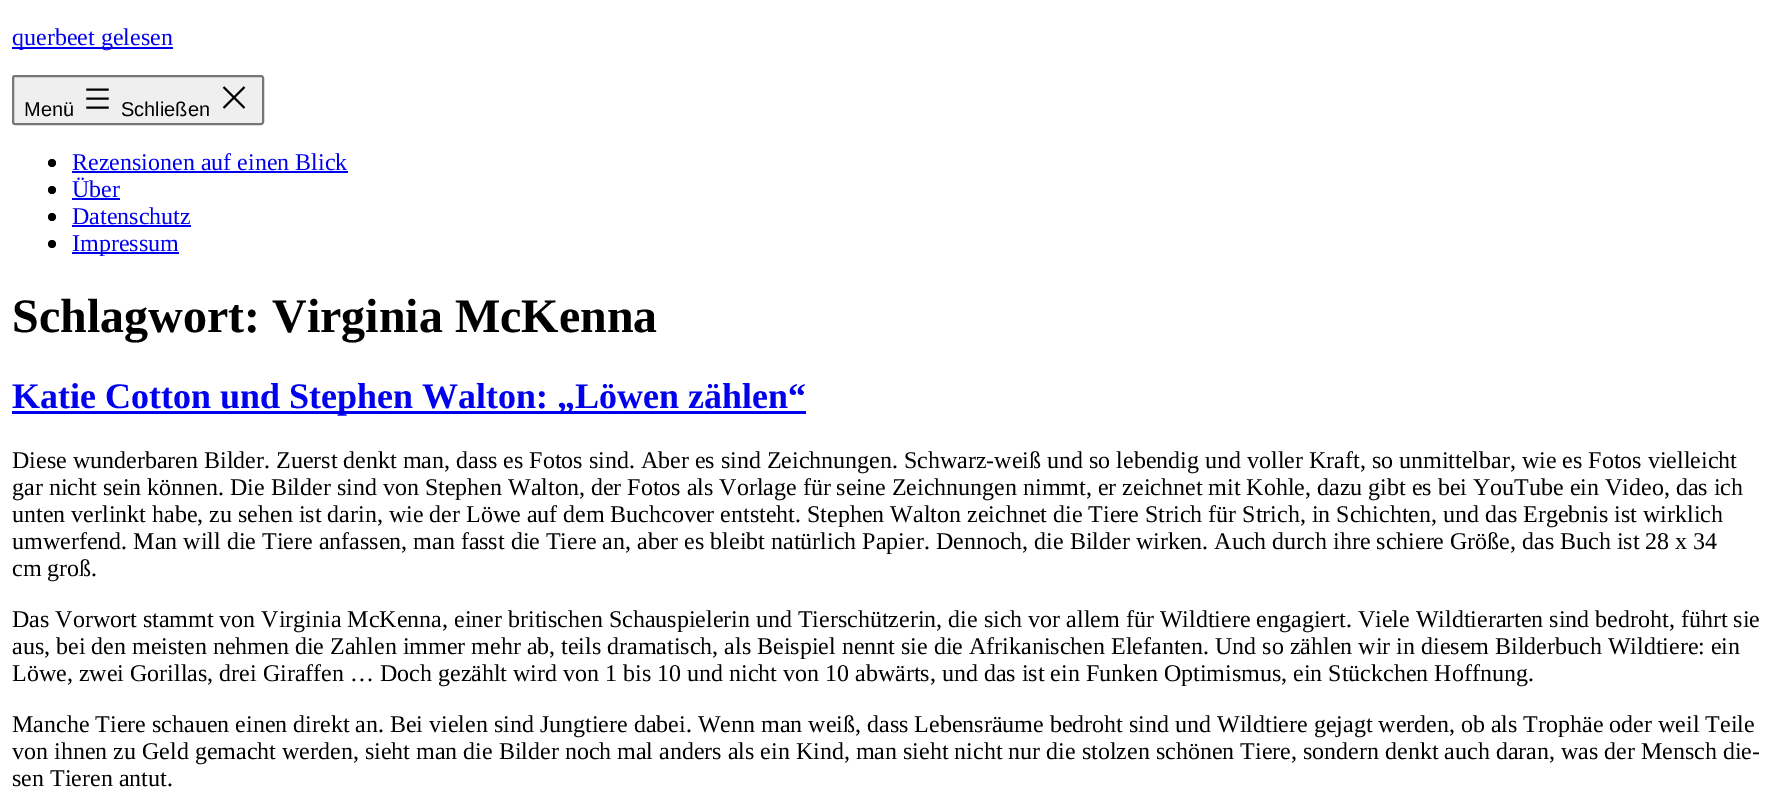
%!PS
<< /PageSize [1774 812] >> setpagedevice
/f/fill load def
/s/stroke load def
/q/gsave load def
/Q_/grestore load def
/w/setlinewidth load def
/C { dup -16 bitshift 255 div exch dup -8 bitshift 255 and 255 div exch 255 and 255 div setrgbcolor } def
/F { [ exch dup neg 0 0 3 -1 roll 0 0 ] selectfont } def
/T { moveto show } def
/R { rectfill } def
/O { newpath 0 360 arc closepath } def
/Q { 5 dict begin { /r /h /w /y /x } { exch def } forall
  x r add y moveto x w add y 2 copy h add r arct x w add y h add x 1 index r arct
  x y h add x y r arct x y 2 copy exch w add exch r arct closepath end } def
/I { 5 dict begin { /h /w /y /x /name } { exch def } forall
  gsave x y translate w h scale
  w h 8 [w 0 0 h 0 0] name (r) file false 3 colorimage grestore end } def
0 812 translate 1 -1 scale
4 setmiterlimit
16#FFFFFF C
0 0 1774 812 R
16#0000EE C
12 47 161 2 R
/LiberationSerif-Regular 24 F
(querbeet gelesen) 12 45 T
16#EFEFEF C
13 76 250 48 2 Q q f Q_
16#767676 C
2 w
s
/LiberationSans-Regular 20 F
16#000000 C
(Menü) 24 116 T
(1.rgb) 86 88 23 21 I
(Schließen) 121 116 T
(2.rgb) 222 86 24 23 I
52 163 4 O f
/LiberationSerif-Regular 24 F
16#0000EE C
(Rezensionen auf einen Blick) 72 170 T
72 171 276 2 R
16#000000 C
52 190 4 O f
16#0000EE C
(Über) 72 197 T
72 198 48 2 R
16#000000 C
52 217 4 O f
16#0000EE C
(Datenschutz) 72 224 T
72 225 119 2 R
16#000000 C
52 244 4 O f
16#0000EE C
72 252 107 2 R
(Impressum) 72 251 T
/LiberationSerif-Bold 48 F
16#000000 C
(Schlagwort: Virginia McKenna) 12 332 T
16#0000EE C
12 411 794 3 R
/LiberationSerif-Bold 36 F
(Katie Cotton und Stephen Walton: „Löwen zählen“) 12 408 T
/LiberationSerif-Regular 24 F
16#000000 C
(Diese wunderbaren Bilder. Zuerst denkt man, dass es Fotos sind. Aber es sind Zeichnungen. Schwarz-weiß und so lebendig und voller Kraft, so unmittelbar, wie es Fotos vielleicht) 12 468 T
(gar nicht sein können. Die Bilder sind von Stephen Walton, der Fotos als Vorlage für seine Zeichnungen nimmt, er zeichnet mit Kohle, dazu gibt es bei YouTube ein Video, das ich) 12 495 T
(unten verlinkt habe, zu sehen ist darin, wie der Löwe auf dem Buchcover entsteht. Stephen Walton zeichnet die Tiere Strich für Strich, in Schichten, und das Ergebnis ist wirklich) 12 522 T
(umwerfend. Man will die Tiere anfassen, man fasst die Tiere an, aber es bleibt natürlich Papier. Dennoch, die Bilder wirken. Auch durch ihre schiere Größe, das Buch ist 28 x 34) 12 549 T
(cm groß.) 12 576 T
(Das Vorwort stammt von Virginia McKenna, einer britischen Schauspielerin und Tierschützerin, die sich vor allem für Wildtiere engagiert. Viele Wildtierarten sind bedroht, führt sie) 12 627 T
(aus, bei den meisten nehmen die Zahlen immer mehr ab, teils dramatisch, als Beispiel nennt sie die Afrikanischen Elefanten. Und so zählen wir in diesem Bilderbuch Wildtiere: ein) 12 654 T
(Löwe, zwei Gorillas, drei Giraffen … Doch gezählt wird von 1 bis 10 und nicht von 10 abwärts, und das ist ein Funken Optimismus, ein Stückchen Hoffnung.) 12 681 T
(Manche Tiere schauen einen direkt an. Bei vielen sind Jungtiere dabei. Wenn man weiß, dass Lebensräume bedroht sind und Wildtiere gejagt werden, ob als Trophäe oder weil Teile) 12 732 T
(von ihnen zu Geld gemacht werden, sieht man die Bilder noch mal anders als ein Kind, man sieht nicht nur die stolzen schönen Tiere, sondern denkt auch daran, was der Mensch die-) 12 759 T
(sen Tieren antut.) 12 786 T
showpage
